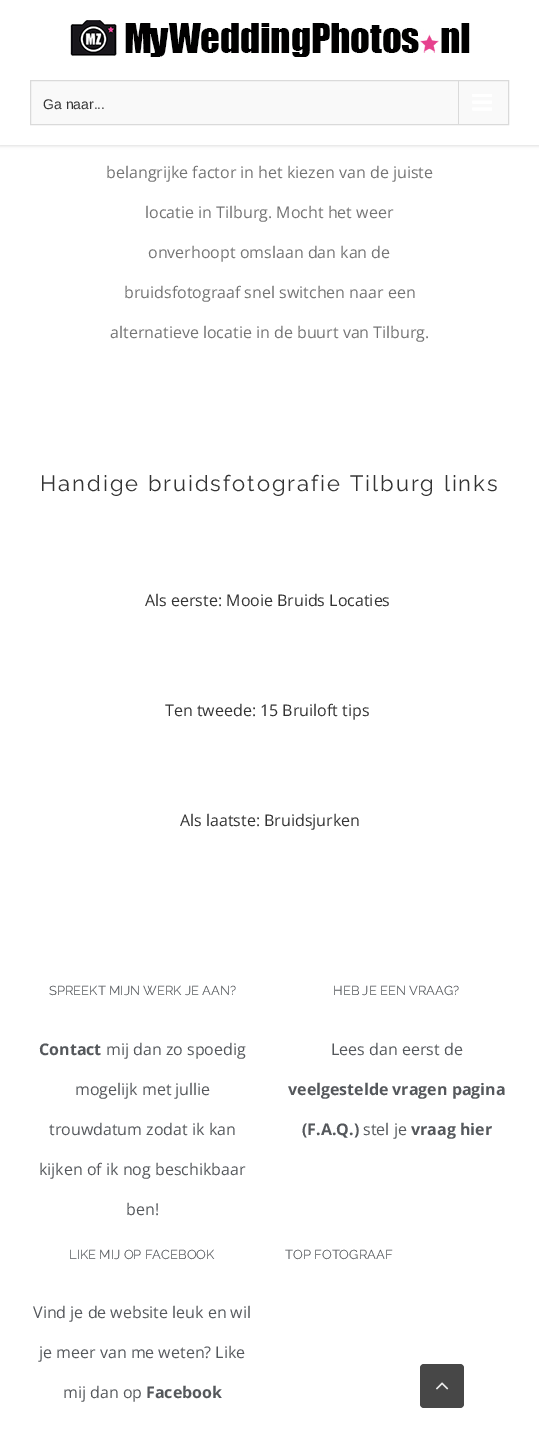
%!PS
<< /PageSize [539 1438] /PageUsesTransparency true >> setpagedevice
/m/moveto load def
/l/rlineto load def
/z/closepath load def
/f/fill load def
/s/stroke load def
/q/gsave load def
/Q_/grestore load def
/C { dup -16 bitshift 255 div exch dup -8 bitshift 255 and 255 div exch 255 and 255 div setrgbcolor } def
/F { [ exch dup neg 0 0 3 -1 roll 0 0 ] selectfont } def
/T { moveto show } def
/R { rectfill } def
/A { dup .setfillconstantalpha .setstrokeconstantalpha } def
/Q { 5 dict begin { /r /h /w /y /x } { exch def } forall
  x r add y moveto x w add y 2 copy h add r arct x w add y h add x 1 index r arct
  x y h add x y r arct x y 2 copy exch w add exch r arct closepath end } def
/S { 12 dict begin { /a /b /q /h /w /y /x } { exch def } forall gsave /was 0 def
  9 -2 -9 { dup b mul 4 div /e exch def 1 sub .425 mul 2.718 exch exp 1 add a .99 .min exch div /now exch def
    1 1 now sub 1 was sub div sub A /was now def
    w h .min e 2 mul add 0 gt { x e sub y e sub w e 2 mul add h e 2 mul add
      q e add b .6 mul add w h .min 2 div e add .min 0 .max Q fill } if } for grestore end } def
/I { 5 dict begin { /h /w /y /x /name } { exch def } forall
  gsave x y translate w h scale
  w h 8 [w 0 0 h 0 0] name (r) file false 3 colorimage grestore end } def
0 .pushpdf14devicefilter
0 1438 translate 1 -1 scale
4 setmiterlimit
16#FFFFFF C
0 0 539 1438 R
16#000000 C
0 1 539 145 0 1.5 .12 S
16#FFFFFF C
0 0 539 145 R
(1.rgb) 70 20 400 37 I
16#F9F9F9 C
30.5 80.5 m 478 0 l 0 44 l -478 0 l z q f Q_
16#DADADA C
s
/LiberationSans-Regular 14 F
16#333333 C
(Ga naar...) 43 109 T
16#DADADA C
458 81 1 43 R
(2.rgb) 472 94 20 17 I
/OpenSans-Regular 16 F
16#747474 C
(belangrijke factor in het kiezen van de juiste) 106 178 T
(locatie in Tilburg. Mocht het weer) 145 218 T
(onverhoopt omslaan dan kan de) 148 258 T
(bruidsfotograaf snel switchen naar een) 124 298 T
(alternatieve locatie in de buurt van Tilburg.) 110 338 T
/Raleway-Regular 22 F
16#333333 C
40 491 m 2 0 (Handige bruidsfotografie Tilburg links) ashow
/OpenSans-Regular 16 F
(Als eerste: Mooie Bruids Locaties) 145 606 T
(Ten tweede: 15 Bruiloft tips) 165 716 T
(Als laatste: Bruidsjurken) 180 826 T
/Raleway-Regular 13 F
16#55585C C
(SPREEKT MIJN WERK JE AAN?) 49 995 T
/OpenSans-Bold 16 F
(Contact) 39 1055 T
/OpenSans-Regular 16 F
(mij dan zo spoedig) 106 1055 T
(mogelijk met jullie) 75 1095 T
(trouwdatum zodat ik kan) 49 1135 T
(kijken of ik nog beschikbaar) 39 1175 T
(ben!) 126 1215 T
/Raleway-Regular 13 F
(HEB JE EEN VRAAG?) 333 995 T
/OpenSans-Regular 16 F
(Lees dan eerst de) 331 1055 T
/OpenSans-Bold 16 F
(veelgestelde vragen pagina) 288 1095 T
(\(F.A.Q.\)) 302 1135 T
/OpenSans-Regular 16 F
(stel je) 363 1135 T
/OpenSans-Bold 16 F
(vraag hier) 411 1135 T
/Raleway-Regular 13 F
(LIKE MIJ OP FACEBOOK) 69 1259 T
/OpenSans-Regular 16 F
(Vind je de website leuk en wil) 33 1318 T
(je meer van me weten? Like) 39 1358 T
(mij dan op) 63 1398 T
/OpenSans-Bold 16 F
(Facebook) 146 1398 T
/Raleway-Regular 13 F
(TOP FOTOGRAAF) 285 1259 T
16#474747 C
420 1364 44 44 4 Q f
(3.rgb) 436 1382 13 8 I
.poppdf14devicefilter showpage
